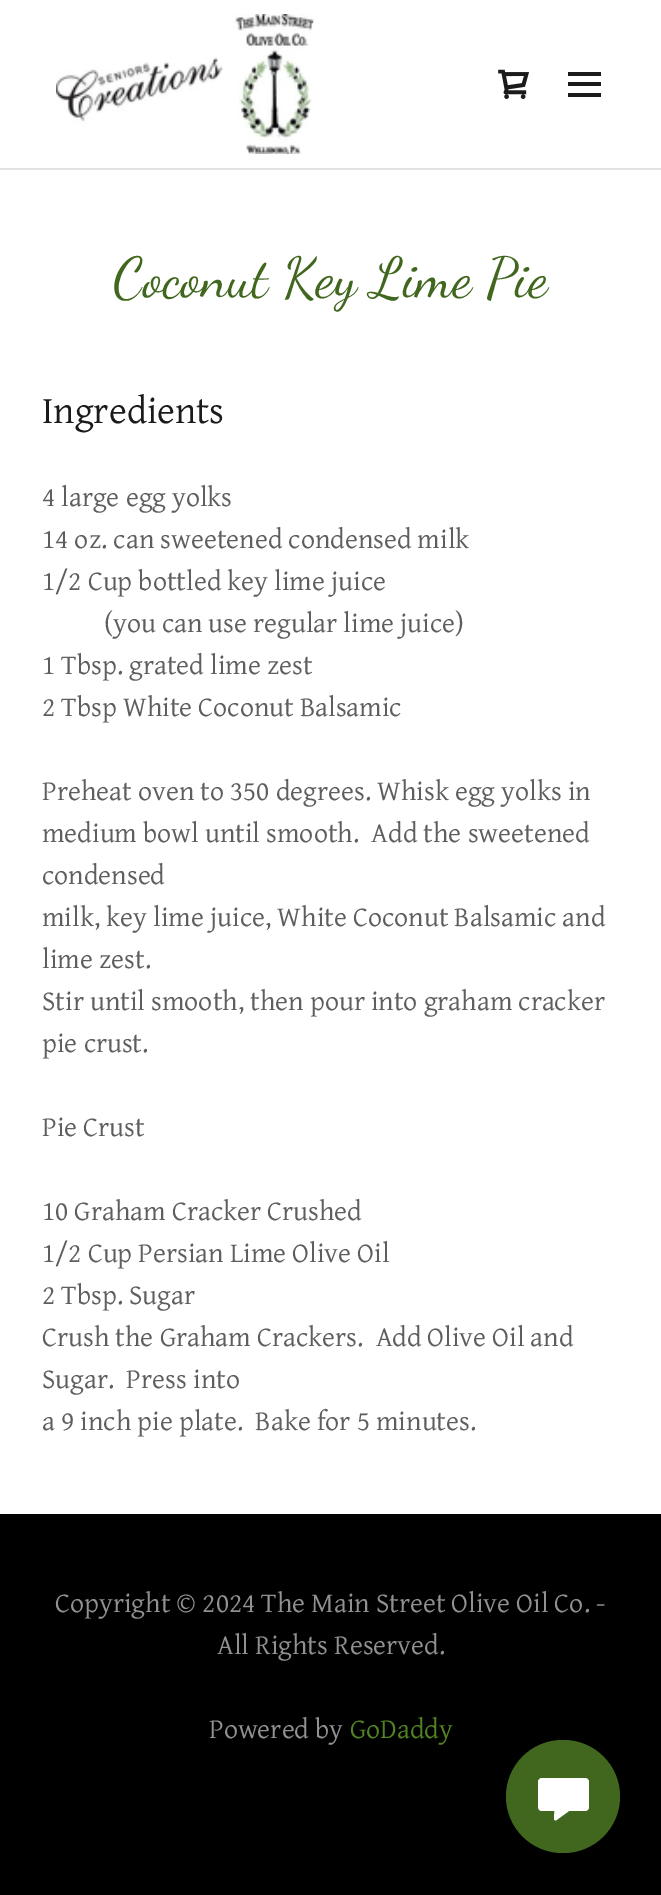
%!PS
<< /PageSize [661 1895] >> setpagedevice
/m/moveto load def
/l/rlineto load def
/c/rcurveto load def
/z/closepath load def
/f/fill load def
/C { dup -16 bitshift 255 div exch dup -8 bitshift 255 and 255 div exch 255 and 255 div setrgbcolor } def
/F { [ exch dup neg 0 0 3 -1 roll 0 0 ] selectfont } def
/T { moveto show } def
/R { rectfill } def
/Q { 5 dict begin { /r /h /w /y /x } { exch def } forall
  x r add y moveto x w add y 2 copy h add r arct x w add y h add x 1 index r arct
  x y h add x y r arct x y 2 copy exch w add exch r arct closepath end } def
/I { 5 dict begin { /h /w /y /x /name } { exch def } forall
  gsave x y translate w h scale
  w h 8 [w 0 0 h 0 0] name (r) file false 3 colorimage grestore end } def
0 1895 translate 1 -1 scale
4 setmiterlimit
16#000000 C
0 0 661 1895 R
16#FFFFFF C
0 0 661 168 R
(1.rgb) 56 14 258 140 I
(2.rgb) 498 69 31 30 I
16#1B1B1B C
568 72 33 4 R
568 82 33 4 R
568 93 33 4 R
16#E2E2E2 C
0 168 661 2 R
16#FFFFFF C
0 170 661 1344 R
/DancingScript-Regular 56 F
16#40671D C
(Coconut Key Lime Pie) 113 296 T
/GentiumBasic-Regular 38.5 F
16#1B1B1B C
(Ingredients) 42 423 T
/GentiumBasic-Regular 28 F
16#5E5E5E C
(4 large egg yolks) 42 506 T
(14 oz. can sweetened condensed milk) 42 548 T
(1/2 Cup bottled key lime juice) 42 590 T
(\(you can use regular lime juice\)) 104 632 T
(1 Tbsp. grated lime zest) 42 674 T
(2 Tbsp White Coconut Balsamic) 42 716 T
(Preheat oven to 350 degrees. Whisk egg yolks in) 42 800 T
(medium bowl until smooth.  Add the sweetened) 42 842 T
(condensed) 42 884 T
(milk, key lime juice, White Coconut Balsamic and) 42 926 T
(lime zest.) 42 968 T
(Stir until smooth, then pour into graham cracker) 42 1010 T
(pie crust.) 42 1052 T
(Pie Crust) 42 1136 T
(10 Graham Cracker Crushed) 42 1220 T
(1/2 Cup Persian Lime Olive Oil) 42 1262 T
(2 Tbsp. Sugar) 42 1304 T
(Crush the Graham Crackers.  Add Olive Oil and) 42 1346 T
(Sugar.  Press into) 42 1388 T
(a 9 inch pie plate.  Bake for 5 minutes.) 42 1430 T
16#919191 C
(Copyright © 2024 The Main Street Olive Oil Co. -) 55 1612 T
(All Rights Reserved.) 217 1654 T
(Powered by) 209 1738 T
16#518224 C
(GoDaddy) 350 1738 T
16#40671D C
506 1740 114 113 56.5 Q f
16#FFFFFF C
538 1778 51 33 4 Q f
554 1818.5 m .5 -9 l 0 -1 1 -1.5 2 -1.5 c 11.5 0 l 1.5 0 2.5 2 1 3 c -12.5 9 l -.5 .5 -1 .5 -2 0 c -.5 -.5 -.5 -1 -.5 -1.5 c z f
showpage
